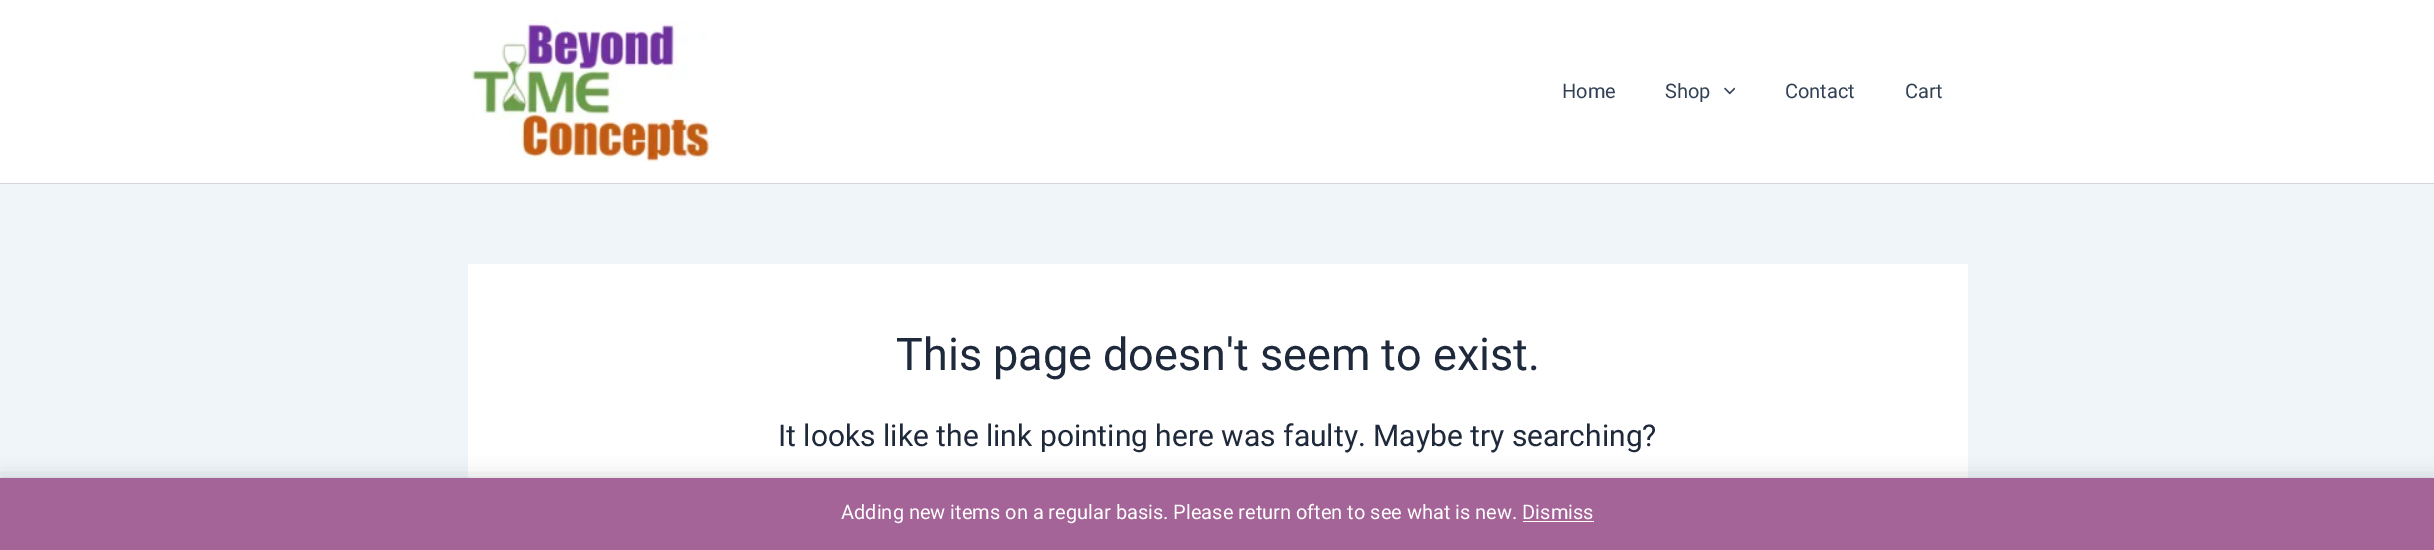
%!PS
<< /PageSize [2434 550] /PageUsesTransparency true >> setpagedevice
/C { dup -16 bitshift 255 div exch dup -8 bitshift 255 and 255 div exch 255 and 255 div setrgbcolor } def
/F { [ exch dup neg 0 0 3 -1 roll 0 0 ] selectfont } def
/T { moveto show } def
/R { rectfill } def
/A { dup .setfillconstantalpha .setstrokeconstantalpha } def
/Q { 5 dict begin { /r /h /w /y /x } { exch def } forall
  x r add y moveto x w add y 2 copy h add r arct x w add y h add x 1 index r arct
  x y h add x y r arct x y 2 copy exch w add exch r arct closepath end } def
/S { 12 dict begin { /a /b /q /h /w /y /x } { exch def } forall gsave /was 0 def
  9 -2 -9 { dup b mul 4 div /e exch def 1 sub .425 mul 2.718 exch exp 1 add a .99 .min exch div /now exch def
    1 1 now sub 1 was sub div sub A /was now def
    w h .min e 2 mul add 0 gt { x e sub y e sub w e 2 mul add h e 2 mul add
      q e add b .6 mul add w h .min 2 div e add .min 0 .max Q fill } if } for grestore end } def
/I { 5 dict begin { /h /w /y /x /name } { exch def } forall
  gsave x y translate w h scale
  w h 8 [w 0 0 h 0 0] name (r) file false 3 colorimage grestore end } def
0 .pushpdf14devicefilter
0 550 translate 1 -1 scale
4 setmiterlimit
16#F0F5FA C
0 0 2434 550 R
16#FFFFFF C
0 0 2434 183 R
16#D1D5DB C
0 183 2434 1 R
(1.rgb) 471 20 241 142 I
/Roboto-Regular 20 F
16#334155 C
(Home) 1562 98 T
(Shop) 1665 98 T
(2.rgb) 1724 87 11 8 I
(Contact) 1785 98 T
(Cart) 1905 98 T
16#FFFFFF C
468 264 1500 214 R
/Roboto-Regular 45 F
16#1E293B C
(This page doesn't seem to exist.) 896 370 T
/Roboto-Regular 30 F
(It looks like the link pointing here was faulty. Maybe try searching?) 778 446 T
16#000000 C
0 479 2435 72 0 10 .2 S
16#A46497 C
0 478 2434 72 R
/Roboto-Regular 20 F
16#FFFFFF C
(Adding new items on a regular basis. Please return often to see what is new. Dismiss) 841 519 T
1523 521 71 1 R
.poppdf14devicefilter showpage
